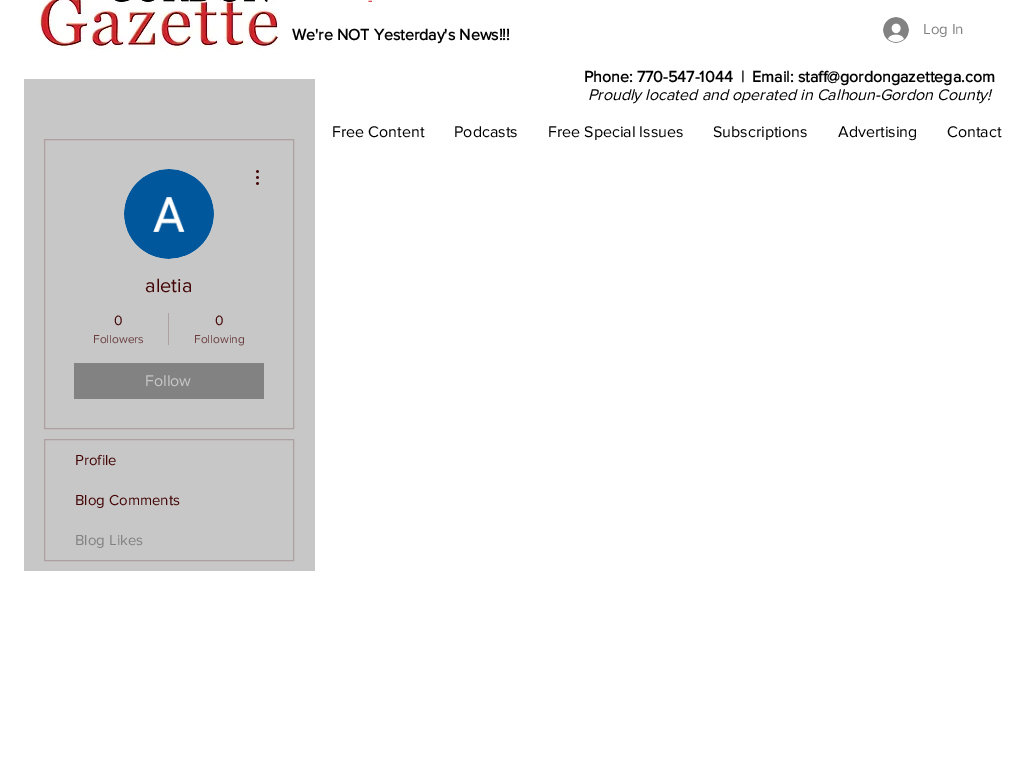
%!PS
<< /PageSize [1027 769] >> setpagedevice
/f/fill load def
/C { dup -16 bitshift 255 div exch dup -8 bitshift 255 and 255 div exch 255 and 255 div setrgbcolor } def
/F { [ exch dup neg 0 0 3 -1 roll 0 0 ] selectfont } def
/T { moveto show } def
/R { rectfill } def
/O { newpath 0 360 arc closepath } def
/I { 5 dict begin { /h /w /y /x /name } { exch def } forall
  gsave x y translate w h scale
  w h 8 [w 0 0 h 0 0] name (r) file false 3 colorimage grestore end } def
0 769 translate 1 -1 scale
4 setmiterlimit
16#FFFFFF C
0 0 1027 769 R
(1.rgb) 39 0 241 49 I
/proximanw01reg-Regular 15 F
16#CC1013 C
(-) 368 5 T
/proximanw01reg-Bold 16 F
16#000000 C
(We're NOT Yesterday's News!!!) 292 40 T
(2.rgb) 883 17 26 26 I
/proximanw01reg-Regular 15 F
16#828282 C
(Log In) 923 34 T
/proximanw01reg-Bold 16 F
16#000000 C
(Phone: 770-547-1044  |  Email: staff@gordongazettega.com) 584 82 T
/proximanw01reg-Italic 16 F
(Proudly located and operated in Calhoun-Gordon County!) 588 100 T
/proximanw01reg-Regular 16 F
(Free Content) 332 137 T
(Podcasts) 454 137 T
(Free Special Issues) 548 137 T
(Subscriptions) 713 137 T
(Advertising) 838 137 T
(Contact) 947 137 T
16#C7C7C7 C
24 79 291 492 R
16#ADA0A0 C
44.5 139.5 249 289 rectstroke
16#D8D8D8 C
169 214 45 O f
(3.rgb) 124 169 90 90 I
(4.rgb) 256 170 3 15 I
/proximanw01reg-Regular 20 F
16#440506 C
(aletia) 145 292 T
/proximanw01reg-Regular 14 F
(0) 114 325 T
/proximanw01reg-Regular 12 F
16#6B3F40 C
(Followers) 93 343 T
16#ADA0A0 C
168 313 1 32 R
/proximanw01reg-Regular 14 F
16#440506 C
(0) 215 325 T
/proximanw01reg-Regular 12 F
16#6B3F40 C
(Following) 194 343 T
16#828282 C
74 363 190 36 R
/proximanw01reg-Regular 16 F
16#C7C7C7 C
(Follow) 145 386 T
16#ADA0A0 C
44.5 439.5 249 121 rectstroke
/proximanw01reg-Regular 15 F
16#440506 C
(Profile) 75 465 T
(Blog Comments) 75 505 T
16#828282 C
(Blog Likes) 75 545 T
showpage
